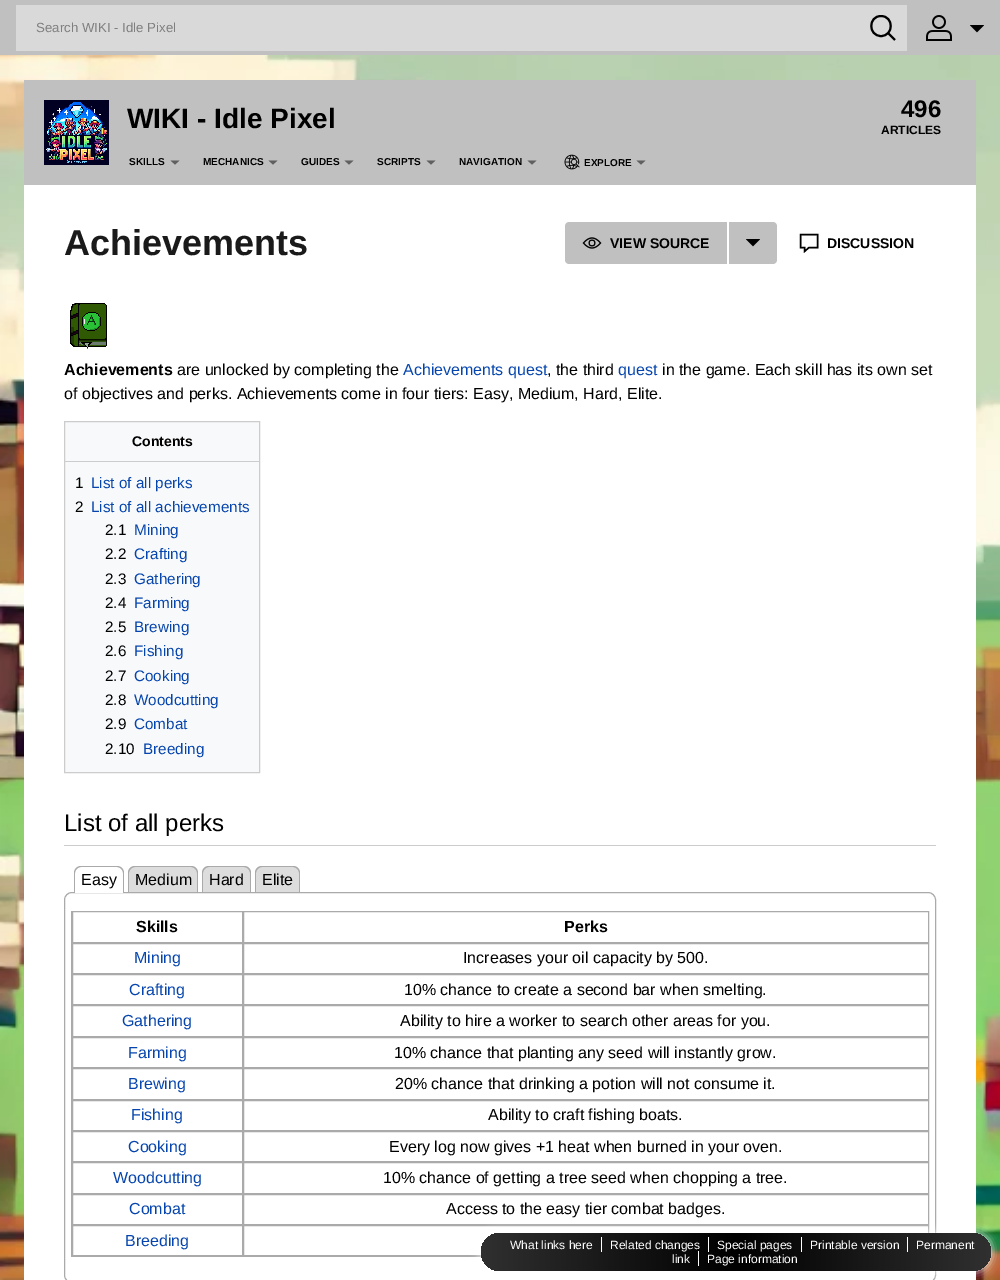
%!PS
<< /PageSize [1000 1280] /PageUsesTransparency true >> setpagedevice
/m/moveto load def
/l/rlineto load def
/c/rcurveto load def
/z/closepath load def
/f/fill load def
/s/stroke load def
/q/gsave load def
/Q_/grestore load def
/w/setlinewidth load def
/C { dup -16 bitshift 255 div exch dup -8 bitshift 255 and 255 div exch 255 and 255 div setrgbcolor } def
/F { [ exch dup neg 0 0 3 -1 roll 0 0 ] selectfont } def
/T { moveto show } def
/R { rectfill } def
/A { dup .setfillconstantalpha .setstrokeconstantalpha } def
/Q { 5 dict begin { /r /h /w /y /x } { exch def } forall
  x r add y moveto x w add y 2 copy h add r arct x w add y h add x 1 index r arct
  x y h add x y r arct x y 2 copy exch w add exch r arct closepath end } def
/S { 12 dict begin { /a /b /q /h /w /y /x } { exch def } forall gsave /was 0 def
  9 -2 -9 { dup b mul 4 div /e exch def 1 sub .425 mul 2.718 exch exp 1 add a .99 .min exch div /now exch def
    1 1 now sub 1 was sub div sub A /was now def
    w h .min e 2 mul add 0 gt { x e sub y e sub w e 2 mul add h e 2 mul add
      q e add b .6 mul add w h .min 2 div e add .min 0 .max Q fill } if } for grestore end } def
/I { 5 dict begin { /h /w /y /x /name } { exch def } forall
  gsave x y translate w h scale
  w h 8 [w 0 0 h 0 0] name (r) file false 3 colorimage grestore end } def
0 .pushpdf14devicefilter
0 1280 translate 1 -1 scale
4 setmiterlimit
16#FFFFFF C
0 0 1000 1280 R
16#C0C0C0 C
0 0 1000 55 R
16#D9D9D9 C
16 5 891 46 R
/LiberationSans-Regular 13.25 F
16#7F7F7F C
(Search WIKI - Idle Pixel) 36 32 T
16#000000 C
2 w
881 16 m -13 0 -13 20 0 20 c 13 0 13 -20 0 -20 c z 888 33 m 7 7 l s
(1.rgb) 926 15 26 26 I
(2.rgb) 970 25 14 8 I
(3.rgb) 0 55 1000 1225 I
16#C0C0C0 C
24 80 952 105 R
(4.rgb) 44 100 65 65 I
/LiberationSans-Bold 28 F
16#000000 C
(WIKI - Idle Pixel) 127 128 T
/LiberationSans-Bold 24 F
(496) 901 117 T
/LiberationSans-Bold 12 F
(ARTICLES) 881 134 T
/LiberationSans-Bold 10 F
(SKILLS) 129 165 T
16#606060 C
170.5 160.5 m 9 0 l -4.5 4 l z f
16#000000 C
(MECHANICS) 203 165 T
16#606060 C
268.5 160.5 m 9 0 l -4.5 4 l z f
16#000000 C
(GUIDES) 301 165 T
16#606060 C
344.5 160.5 m 9 0 l -4.5 4 l z f
16#000000 C
(SCRIPTS) 377 165 T
16#606060 C
426.5 160.5 m 9 0 l -4.5 4 l z f
16#000000 C
(NAVIGATION) 459 165 T
16#606060 C
527.5 160.5 m 9 0 l -4.5 4 l z f
(5.rgb) 564 154 16 16 I
16#000000 C
(EXPLORE) 584 166 T
16#606060 C
636.5 160.5 m 9 0 l -4.5 4 l z f
16#FFFFFF C
24 185 952 1095 R
/LiberationSans-Bold 36 F
16#1A1A1A C
(Achievements) 64 255 T
16#C0C0C0 C
569 222 m 158 0 l 0 42 l -158 0 l -2 0 -4 -2 -4 -4 c 0 -34 l 0 -2 2 -4 4 -4 c z f
(6.rgb) 582 237 20 12 I
/LiberationSans-Bold 14 F
16#000000 C
(VIEW SOURCE) 610 248 T
16#C0C0C0 C
729 222 m 44 0 l 2 0 4 2 4 4 c 0 34 l 0 2 -2 4 -4 4 c -44 0 l z f
(2.rgb) 746 239 14 8 I
16#000000 C
1.4 w
800.5 234.5 m 17 0 l 0 13 l -8.5 0 l -4.5 4 l 0 -4 l -4 0 l z s
(DISCUSSION) 827 248 T
(7.rgb) 70 303 37 46 I
/LiberationSans-Bold 16 F
(Achievements) 64 375 T
/LiberationSans-Regular 16 F
(are unlocked by completing the) 177 375 T
16#0645AD C
(Achievements quest) 403 375 T
16#000000 C
(, the third) 547 375 T
16#0645AD C
(quest) 618 375 T
16#000000 C
(in the game. Each skill has its own set) 662 375 T
(of objectives and perks. Achievements come in four tiers: Easy, Medium, Hard, Elite.) 64 399 T
16#F8F9FA C
64.5 421.5 m 195 0 l 0 351 l -195 0 l z q f Q_
16#CCCCCC C
1 w
s
/LiberationSans-Bold 14 F
16#000000 C
(Contents) 132 446 T
16#CCCCCC C
65 461 194 1 R
/LiberationSans-Regular 15.25 F
16#000000 C
(1) 75 488 T
16#0645AD C
(List of all perks) 91 488 T
16#000000 C
(2) 75 512 T
16#0645AD C
(List of all achievements) 91 512 T
16#000000 C
(2.1) 105 535 T
16#0645AD C
(Mining) 134 535 T
16#000000 C
(2.2) 105 559 T
16#0645AD C
(Crafting) 134 559 T
16#000000 C
(2.3) 105 584 T
16#0645AD C
(Gathering) 134 584 T
16#000000 C
(2.4) 105 608 T
16#0645AD C
(Farming) 134 608 T
16#000000 C
(2.5) 105 632 T
16#0645AD C
(Brewing) 134 632 T
16#000000 C
(2.6) 105 656 T
16#0645AD C
(Fishing) 134 656 T
16#000000 C
(2.7) 105 681 T
16#0645AD C
(Cooking) 134 681 T
16#000000 C
(2.8) 105 705 T
16#0645AD C
(Woodcutting) 134 705 T
16#000000 C
(2.9) 105 729 T
16#0645AD C
(Combat) 134 729 T
16#000000 C
(2.10) 105 754 T
16#0645AD C
(Breeding) 143 754 T
16#CCCCCC C
64 845 872 1 R
/LiberationSans-Regular 24 F
16#000000 C
(List of all perks) 64 831 T
16#DDDDDD C
135 866 m 56 0 l 4 0 7 3 7 7 c 0 20 l -70 0 l 0 -20 l 0 -4 3 -7 7 -7 c z f
16#AAAAAA C
135 866 m 56 0 l 4 0 7 3 7 7 c 0 20 l -70 0 l 0 -20 l 0 -4 3 -7 7 -7 c z 135 867 m 56 0 l 3 0 6 3 6 6 c 0 20 l -68 0 l 0 -20 l 0 -3 3 -6 6 -6 c z eofill
16#DDDDDD C
209 866 m 35 0 l 4 0 7 3 7 7 c 0 20 l -49 0 l 0 -20 l 0 -4 3 -7 7 -7 c z f
16#AAAAAA C
209 866 m 35 0 l 4 0 7 3 7 7 c 0 20 l -49 0 l 0 -20 l 0 -4 3 -7 7 -7 c z 209 867 m 35 0 l 3 0 6 3 6 6 c 0 20 l -47 0 l 0 -20 l 0 -3 3 -6 6 -6 c z eofill
16#DDDDDD C
262 866 m 31 0 l 4 0 7 3 7 7 c 0 20 l -45 0 l 0 -20 l 0 -4 3 -7 7 -7 c z f
16#AAAAAA C
262 866 m 31 0 l 4 0 7 3 7 7 c 0 20 l -45 0 l 0 -20 l 0 -4 3 -7 7 -7 c z 262 867 m 31 0 l 3 0 6 3 6 6 c 0 20 l -43 0 l 0 -20 l 0 -3 3 -6 6 -6 c z eofill
64.5 892.5 871 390 7.5 Q s
16#FFFFFF C
81 866 m 36 0 l 4 0 7 3 7 7 c 0 20 l -50 0 l 0 -20 l 0 -4 3 -7 7 -7 c z f
16#AAAAAA C
81 866 m 36 0 l 4 0 7 3 7 7 c 0 20 l -50 0 l 0 -20 l 0 -4 3 -7 7 -7 c z 81 867 m 36 0 l 3 0 6 3 6 6 c 0 20 l -48 0 l 0 -20 l 0 -3 3 -6 6 -6 c z eofill
/LiberationSans-Regular 16 F
16#000000 C
(Easy) 81 885 T
(Medium) 135 885 T
(Hard) 209 885 T
(Elite) 262 885 T
16#AAAAAA C
71 911 1 1 R
71 1256 411 1 R
71 911 1 346 R
72.5 911.5 170 31 rectstroke
/LiberationSans-Bold 16 F
16#000000 C
(Skills) 136 932 T
16#AAAAAA C
243.5 911.5 685 31 rectstroke
16#000000 C
(Perks) 564 932 T
16#AAAAAA C
72.5 943.5 170 30 rectstroke
/LiberationSans-Regular 16 F
16#0645AD C
(Mining) 134 963 T
16#AAAAAA C
243.5 943.5 685 30 rectstroke
16#000000 C
(Increases your oil capacity by 500.) 463 963 T
16#AAAAAA C
72.5 974.5 170 30 rectstroke
16#0645AD C
(Crafting) 129 995 T
16#AAAAAA C
243.5 974.5 685 30 rectstroke
16#000000 C
(10% chance to create a second bar when smelting.) 404 995 T
16#AAAAAA C
72.5 1005.5 170 31 rectstroke
16#0645AD C
(Gathering) 122 1026 T
16#AAAAAA C
243.5 1005.5 685 31 rectstroke
16#000000 C
(Ability to hire a worker to search other areas for you.) 400 1026 T
16#AAAAAA C
72.5 1037.5 170 30 rectstroke
16#0645AD C
(Farming) 128 1058 T
16#AAAAAA C
243.5 1037.5 685 30 rectstroke
16#000000 C
(10% chance that planting any seed will instantly grow.) 394 1058 T
16#AAAAAA C
72.5 1068.5 170 31 rectstroke
16#0645AD C
(Brewing) 128 1089 T
16#AAAAAA C
243.5 1068.5 685 31 rectstroke
16#000000 C
(20% chance that drinking a potion will not consume it.) 395 1089 T
16#AAAAAA C
72.5 1100.5 170 30 rectstroke
16#0645AD C
(Fishing) 131 1120 T
16#AAAAAA C
243.5 1100.5 685 30 rectstroke
16#000000 C
(Ability to craft fishing boats.) 488 1120 T
16#AAAAAA C
72.5 1131.5 170 30 rectstroke
16#0645AD C
(Cooking) 128 1152 T
16#AAAAAA C
243.5 1131.5 685 30 rectstroke
16#000000 C
(Every log now gives +1 heat when burned in your oven.) 389 1152 T
16#AAAAAA C
72.5 1162.5 170 31 rectstroke
16#0645AD C
(Woodcutting) 113 1183 T
16#AAAAAA C
243.5 1162.5 685 31 rectstroke
16#000000 C
(10% chance of getting a tree seed when chopping a tree.) 383 1183 T
16#AAAAAA C
72.5 1194.5 170 30 rectstroke
16#0645AD C
(Combat) 129 1214 T
16#AAAAAA C
243.5 1194.5 685 30 rectstroke
16#000000 C
(Access to the easy tier combat badges.) 446 1214 T
16#AAAAAA C
72.5 1225.5 170 30 rectstroke
16#0645AD C
(Breeding) 125 1246 T
16#AAAAAA C
243.5 1225.5 685 30 rectstroke
16#FFFFFF C
481 1233 510 38 19 5 1 S
q 481 1233 510 38 19 Q clip newpath
<< /ShadingType 2 /ColorSpace /DeviceRGB /Coords [481 1233 991 1233] /Extend [true true] /Function << /FunctionType 3 /Domain [0 1] /Functions [<< /FunctionType 2 /Domain [0 1] /C0 [.188 .188 .188] /C1 [0 0 0] /N 1 >> << /FunctionType 2 /Domain [0 1] /C0 [0 0 0] /C1 [.188 .188 .188] /N 1 >>] /Bounds [.5] /Encode [0 1 0 1] >> >> shfill Q_
/LiberationSans-Regular 12 F
(What links here) 510 1249 T
601 1237 1 15 R
(Related changes) 610 1249 T
708 1237 1 15 R
(Special pages) 717 1249 T
(Printable version) 810 1249 T
801 1237 1 15 R
907 1237 1 15 R
(Permanent) 916 1249 T
(link) 672 1263 T
698 1251 1 15 R
(Page information) 707 1263 T
.poppdf14devicefilter showpage
